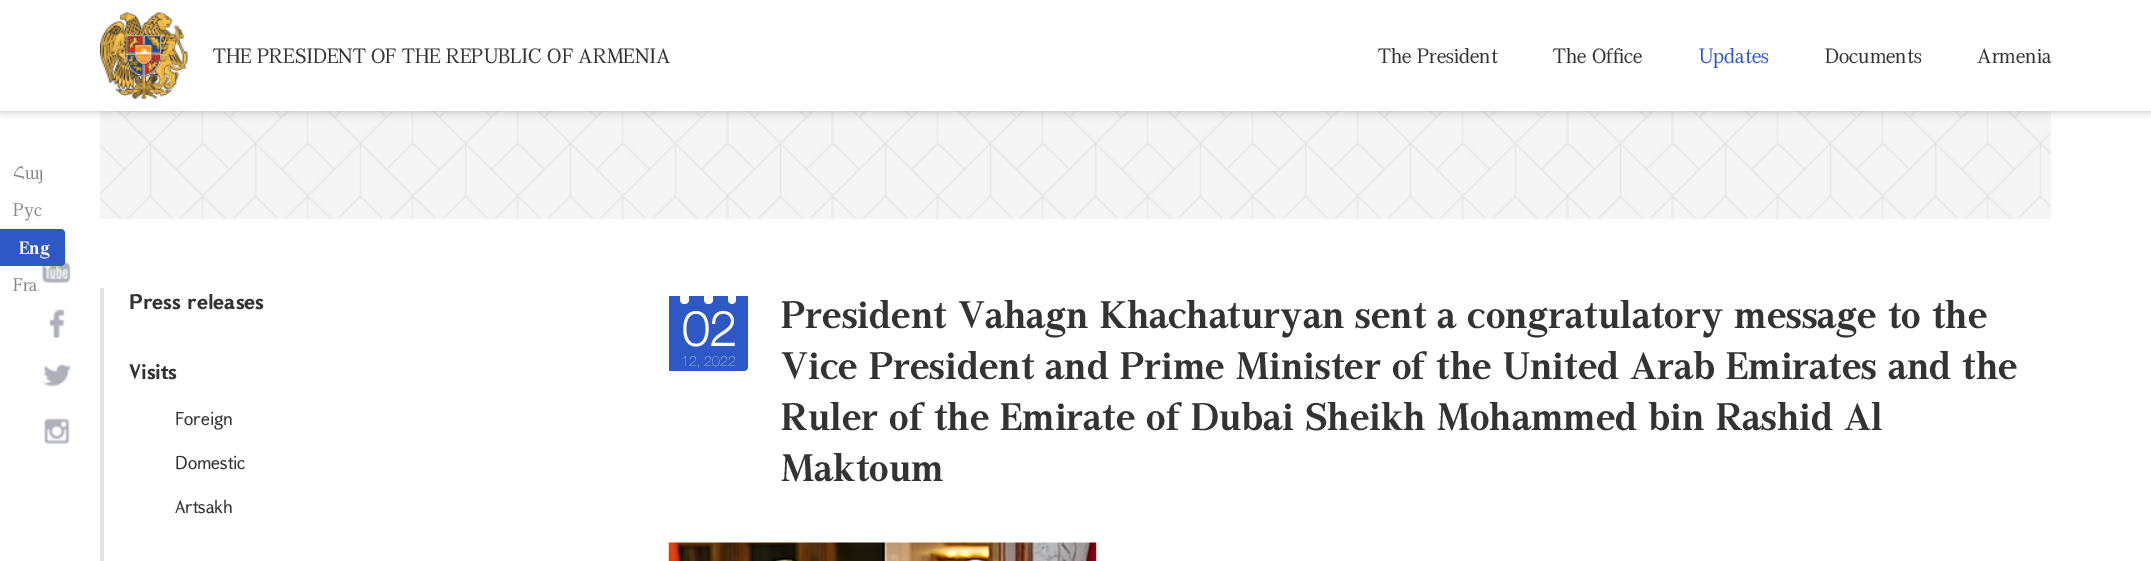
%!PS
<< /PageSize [2151 561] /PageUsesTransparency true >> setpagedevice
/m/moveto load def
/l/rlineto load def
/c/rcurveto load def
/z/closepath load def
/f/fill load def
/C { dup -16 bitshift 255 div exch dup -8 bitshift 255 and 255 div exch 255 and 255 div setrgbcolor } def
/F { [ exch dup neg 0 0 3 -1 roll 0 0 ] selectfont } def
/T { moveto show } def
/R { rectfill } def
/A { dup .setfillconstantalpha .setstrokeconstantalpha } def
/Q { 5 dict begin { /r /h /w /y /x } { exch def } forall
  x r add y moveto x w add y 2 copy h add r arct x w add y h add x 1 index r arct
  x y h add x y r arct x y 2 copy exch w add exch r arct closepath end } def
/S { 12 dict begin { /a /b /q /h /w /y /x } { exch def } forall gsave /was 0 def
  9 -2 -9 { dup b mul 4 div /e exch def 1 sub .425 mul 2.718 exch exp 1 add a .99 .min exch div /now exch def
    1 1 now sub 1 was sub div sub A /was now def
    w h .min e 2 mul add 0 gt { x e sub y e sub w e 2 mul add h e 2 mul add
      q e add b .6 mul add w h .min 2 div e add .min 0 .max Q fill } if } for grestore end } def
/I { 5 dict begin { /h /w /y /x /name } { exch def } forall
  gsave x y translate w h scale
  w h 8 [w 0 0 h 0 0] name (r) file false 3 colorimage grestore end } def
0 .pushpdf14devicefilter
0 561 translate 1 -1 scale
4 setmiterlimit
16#FFFFFF C
0 0 2151 561 R
16#F5F5F5 C
100 111 1951 108 R
(6.rgb) 100 111 1951 108 I
16#000000 C
0 0 2151 111 0 4.5 .25 S
16#FFFFFF C
0 0 2151 111 R
(1.rgb) 100 12 88 87 I
/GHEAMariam-Regular 20 F
16#333333 C
(THE PRESIDENT OF THE REPUBLIC OF ARMENIA) 213 63 T
(The President) 1378 63 T
(The Office) 1553 63 T
16#2D58C6 C
(Updates) 1699 63 T
16#333333 C
(Documents) 1825 63 T
(Armenia) 1977 63 T
/GHEAMariam-Regular 17.5 F
16#868686 C
(Հայ) 13 179 T
(Рус) 13 216 T
(2.rgb) 42 251 29 32 I
16#2D58C6 C
0 229 m 61 0 l 2 0 4 2 4 4 c 0 29 l 0 2 -2 4 -4 4 c -61 0 l z f
/GHEAMariam-Bold 17.5 F
16#FFFFFF C
(Eng) 19 254 T
/GHEAMariam-Regular 17.5 F
16#868686 C
(Fra) 13 291 T
(3.rgb) 49 309 16 29 I
(4.rgb) 43 364 28 23 I
(5.rgb) 43 418 27 26 I
16#E4E3E3 C
100 288 4 273 R
/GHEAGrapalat-Bold 20 F
16#333333 C
(Press releases) 129 309 T
(Visits) 129 379 T
/GHEAGrapalat-Regular 17.5 F
(Foreign) 175 425 T
(Domestic) 175 469 T
(Artsakh) 175 513 T
16#2D58C6 C
669 296 m 79 0 l 0 71 l 0 2 -2 4 -4 4 c -75 0 l z f
16#FFFFFF C
680 296 m 9 0 l 0 4 l 0 2 -2 4 -4 4 c -1 0 l -2 0 -4 -2 -4 -4 c z f
704 296 m 9 0 l 0 4 l 0 2 -2 4 -4 4 c -1 0 l -2 0 -4 -2 -4 -4 c z f
728 296 m 8 0 l 0 4 l 0 2 -2 4 -4 4 c -2 0 -4 -2 -4 -4 c z f
/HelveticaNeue-Bold 48 F
(02) 682 346 T
/HelveticaNeue-Regular 14 F
(12, 2022) 681 366 T
/GHEAMariam-Bold 37.5 F
16#333333 C
(President Vahagn Khachaturyan sent a congratulatory message to the) 781 328 T
(Vice President and Prime Minister of the United Arab Emirates and the) 781 379 T
(Ruler of the Emirate of Dubai Sheikh Mohammed bin Rashid Al) 781 430 T
(Maktoum) 781 481 T
(7.rgb) 668 542 429 19 I
.poppdf14devicefilter showpage
